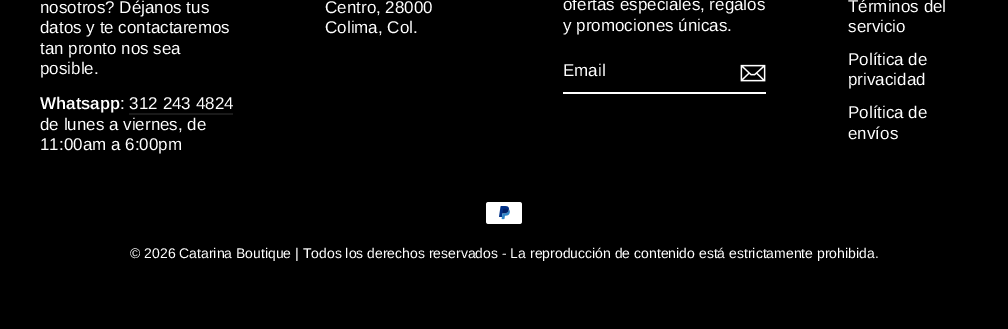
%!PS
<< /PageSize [1008 329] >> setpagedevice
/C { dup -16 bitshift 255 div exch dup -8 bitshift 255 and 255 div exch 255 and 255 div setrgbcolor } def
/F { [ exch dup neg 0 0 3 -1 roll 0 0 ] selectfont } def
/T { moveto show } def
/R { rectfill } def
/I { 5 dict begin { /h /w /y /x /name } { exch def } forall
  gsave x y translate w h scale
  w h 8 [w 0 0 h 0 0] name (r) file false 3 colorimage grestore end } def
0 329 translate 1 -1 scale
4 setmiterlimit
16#000000 C
0 0 1008 329 R
/Arimo-Regular 17 F
16#FFFFFF C
(nosotros? Déjanos tus) 40 13 T
(datos y te contactaremos) 40 33 T
(tan pronto nos sea) 40 54 T
(posible.) 40 74 T
/Arimo-SemiBold 17 F
(Whatsapp) 40 109 T
/Arimo-Regular 17 F
(: 312 243 4824) 120 109 T
16#1A1A1A C
129 113 104 2 R
16#FFFFFF C
(de lunes a viernes, de) 40 130 T
(11:00am a 6:00pm) 40 150 T
(Centro, 28000) 325 13 T
(Colima, Col.) 325 33 T
(ofertas especiales, regalos) 563 10 T
(y promociones únicas.) 563 31 T
563 92 203 2 R
(Email) 563 76 T
(1.rgb) 740 64 26 18 I
(Términos del) 848 12 T
(servicio) 848 32 T
(Política de) 848 65 T
(privacidad) 848 85 T
(Política de) 848 118 T
(envíos) 848 139 T
(2.rgb) 486 202 36 22 I
/Arimo-Regular 14 F
(© 2026 Catarina Boutique | Todos los derechos reservados - La reproducción de contenido está estrictamente prohibida.) 130 258 T
showpage
